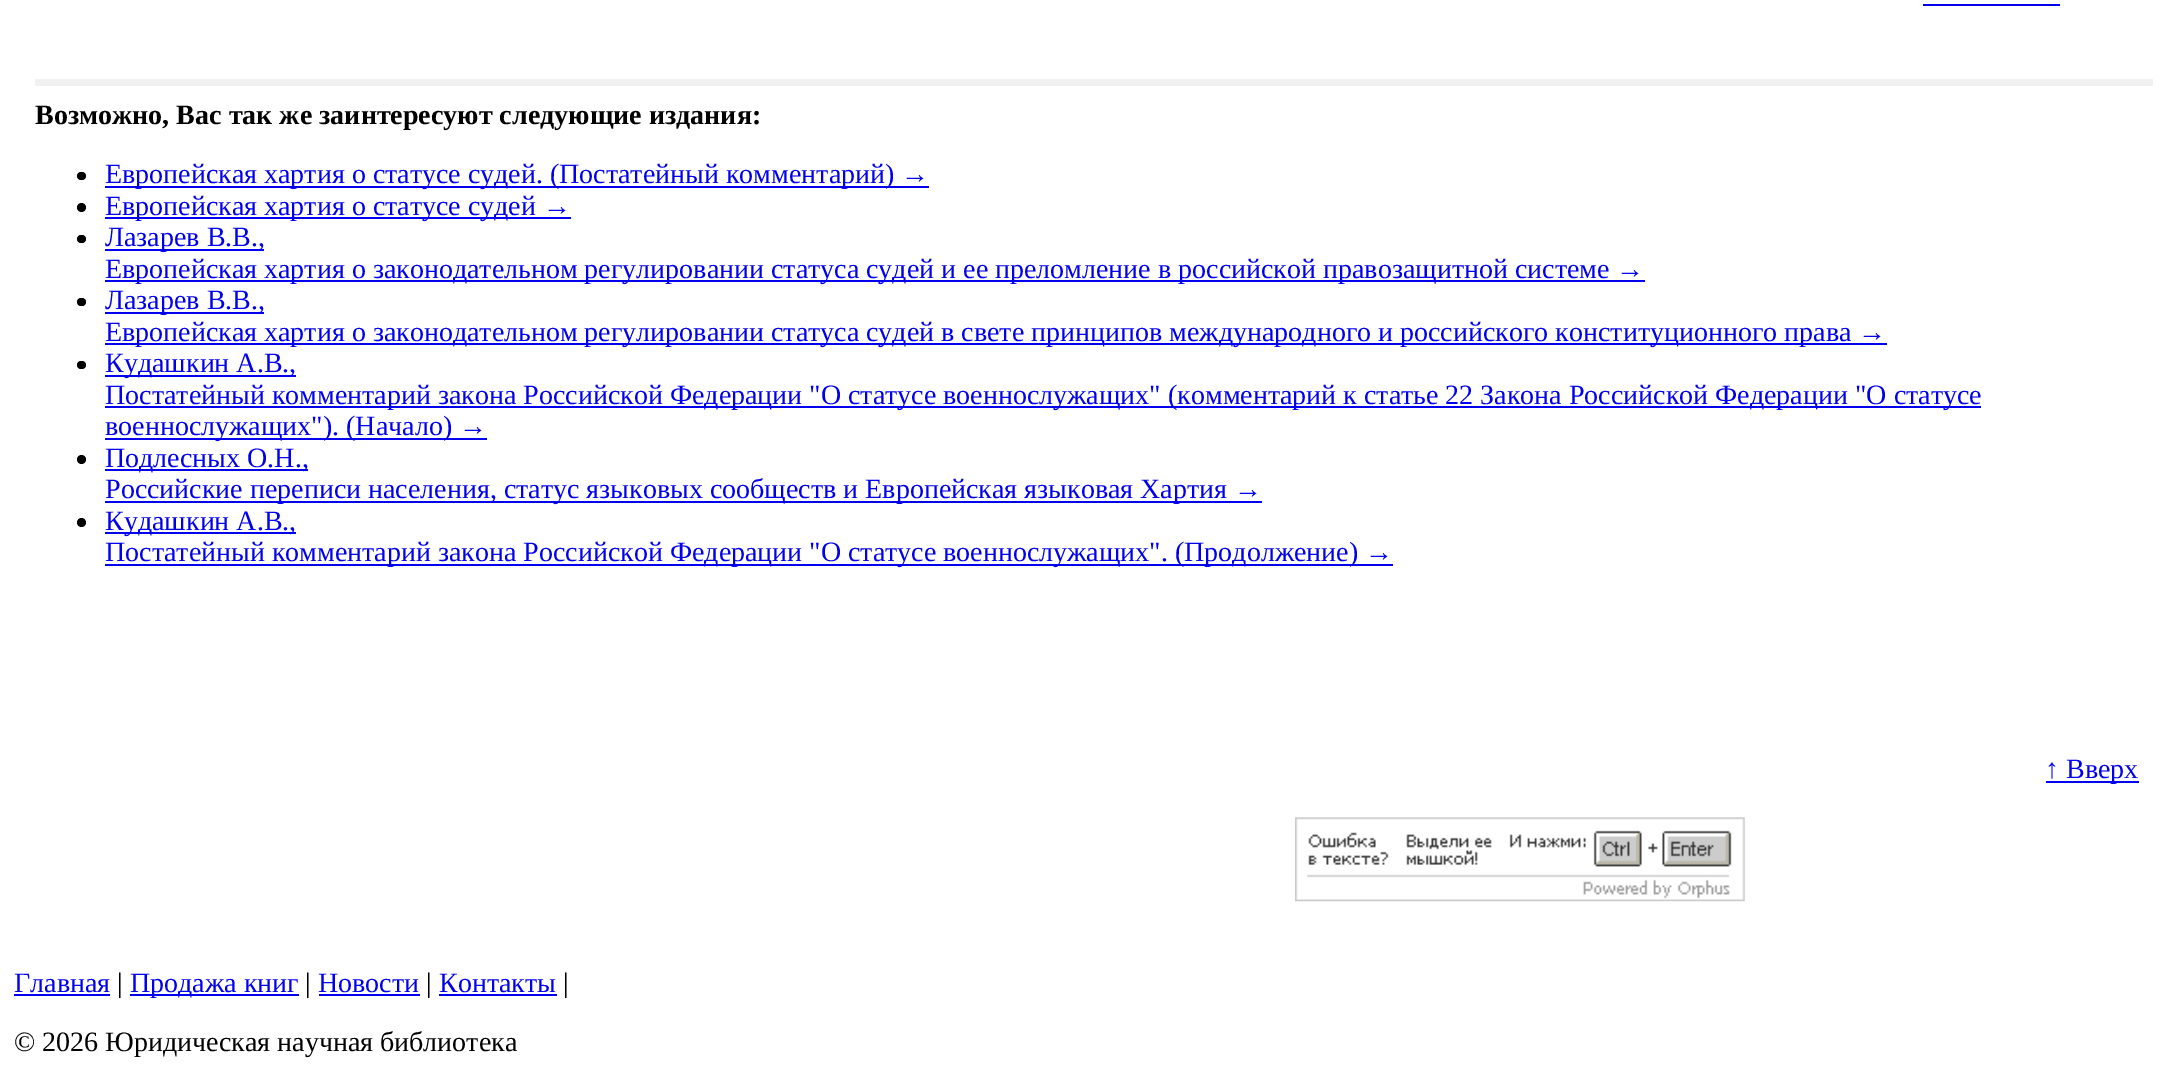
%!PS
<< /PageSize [2165 1086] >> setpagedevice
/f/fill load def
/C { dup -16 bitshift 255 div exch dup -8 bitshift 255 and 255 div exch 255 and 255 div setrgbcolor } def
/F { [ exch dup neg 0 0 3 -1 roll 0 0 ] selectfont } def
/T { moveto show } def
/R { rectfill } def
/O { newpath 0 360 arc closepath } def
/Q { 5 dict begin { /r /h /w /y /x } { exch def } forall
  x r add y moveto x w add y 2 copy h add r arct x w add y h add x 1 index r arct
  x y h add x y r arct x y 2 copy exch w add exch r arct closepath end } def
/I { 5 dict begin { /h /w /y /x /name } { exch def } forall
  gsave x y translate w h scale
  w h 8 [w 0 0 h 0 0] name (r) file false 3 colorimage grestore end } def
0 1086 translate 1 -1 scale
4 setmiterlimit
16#FFFFFF C
0 0 2165 1086 R
16#0000EE C
1923 4 137 2 R
16#F1F1F1 C
35 79 2118 7 R
/LiberationSerif-Bold 28 F
16#000000 C
(Возможно, Вас так же заинтересуют следующие издания:) 35 124 T
77 172 9 8 4 Q f
16#0000EE C
105 186 824 2 R
/LiberationSerif-Regular 28 F
(Европейская хартия о статусе судей. \(Постатейный комментарий\) →) 105 183 T
16#000000 C
81.5 207.5 4.5 O f
16#0000EE C
105 217 466 2 R
(Европейская хартия о статусе судей →) 105 215 T
16#000000 C
77 235 9 8 4 Q f
16#0000EE C
105 249 159 2 R
(Лазарев В.В.,) 105 246 T
105 280 1540 2 R
(Европейская хартия о законодательном регулировании статуса судей и ее преломление в российской правозащитной системе →) 105 278 T
16#000000 C
77 298 9 8 4 Q f
16#0000EE C
105 312 159 2 R
(Лазарев В.В.,) 105 309 T
105 343 1782 2 R
(Европейская хартия о законодательном регулировании статуса судей в свете принципов международного и российского конституционного права →) 105 341 T
16#000000 C
77 361 9 8 4 Q f
16#0000EE C
105 375 191 2 R
(Кудашкин А.В.,) 105 372 T
105 406 1876 2 R
(Постатейный комментарий закона Российской Федерации "О статусе военнослужащих" \(комментарий к статье 22 Закона Российской Федерации "О статусе) 105 404 T
105 438 382 2 R
(военнослужащих"\). \(Начало\) →) 105 435 T
16#000000 C
81.5 459.5 4.5 O f
16#0000EE C
105 469 203 2 R
(Подлесных О.Н.,) 105 467 T
105 501 1157 2 R
(Российские переписи населения, статус языковых сообществ и Европейская языковая Хартия →) 105 498 T
16#000000 C
81.5 522.5 4.5 O f
16#0000EE C
105 532 191 2 R
(Кудашкин А.В.,) 105 530 T
105 564 1288 2 R
(Постатейный комментарий закона Российской Федерации "О статусе военнослужащих". \(Продолжение\) →) 105 561 T
2046 781 93 2 R
(↑ Вверх) 2045 778 T
(1.rgb) 1295 817 450 85 I
(Главная) 14 992 T
14 994 96 2 R
16#000000 C
(|) 117 992 T
16#0000EE C
130 994 169 2 R
(Продажа книг) 130 992 T
16#000000 C
(|) 305 992 T
16#0000EE C
(Новости) 318 992 T
319 994 101 2 R
16#000000 C
(|) 426 992 T
16#0000EE C
(Контакты) 439 992 T
439 994 118 2 R
16#000000 C
(|) 563 992 T
(© 2026 Юридическая научная библиотека) 14 1051 T
showpage
